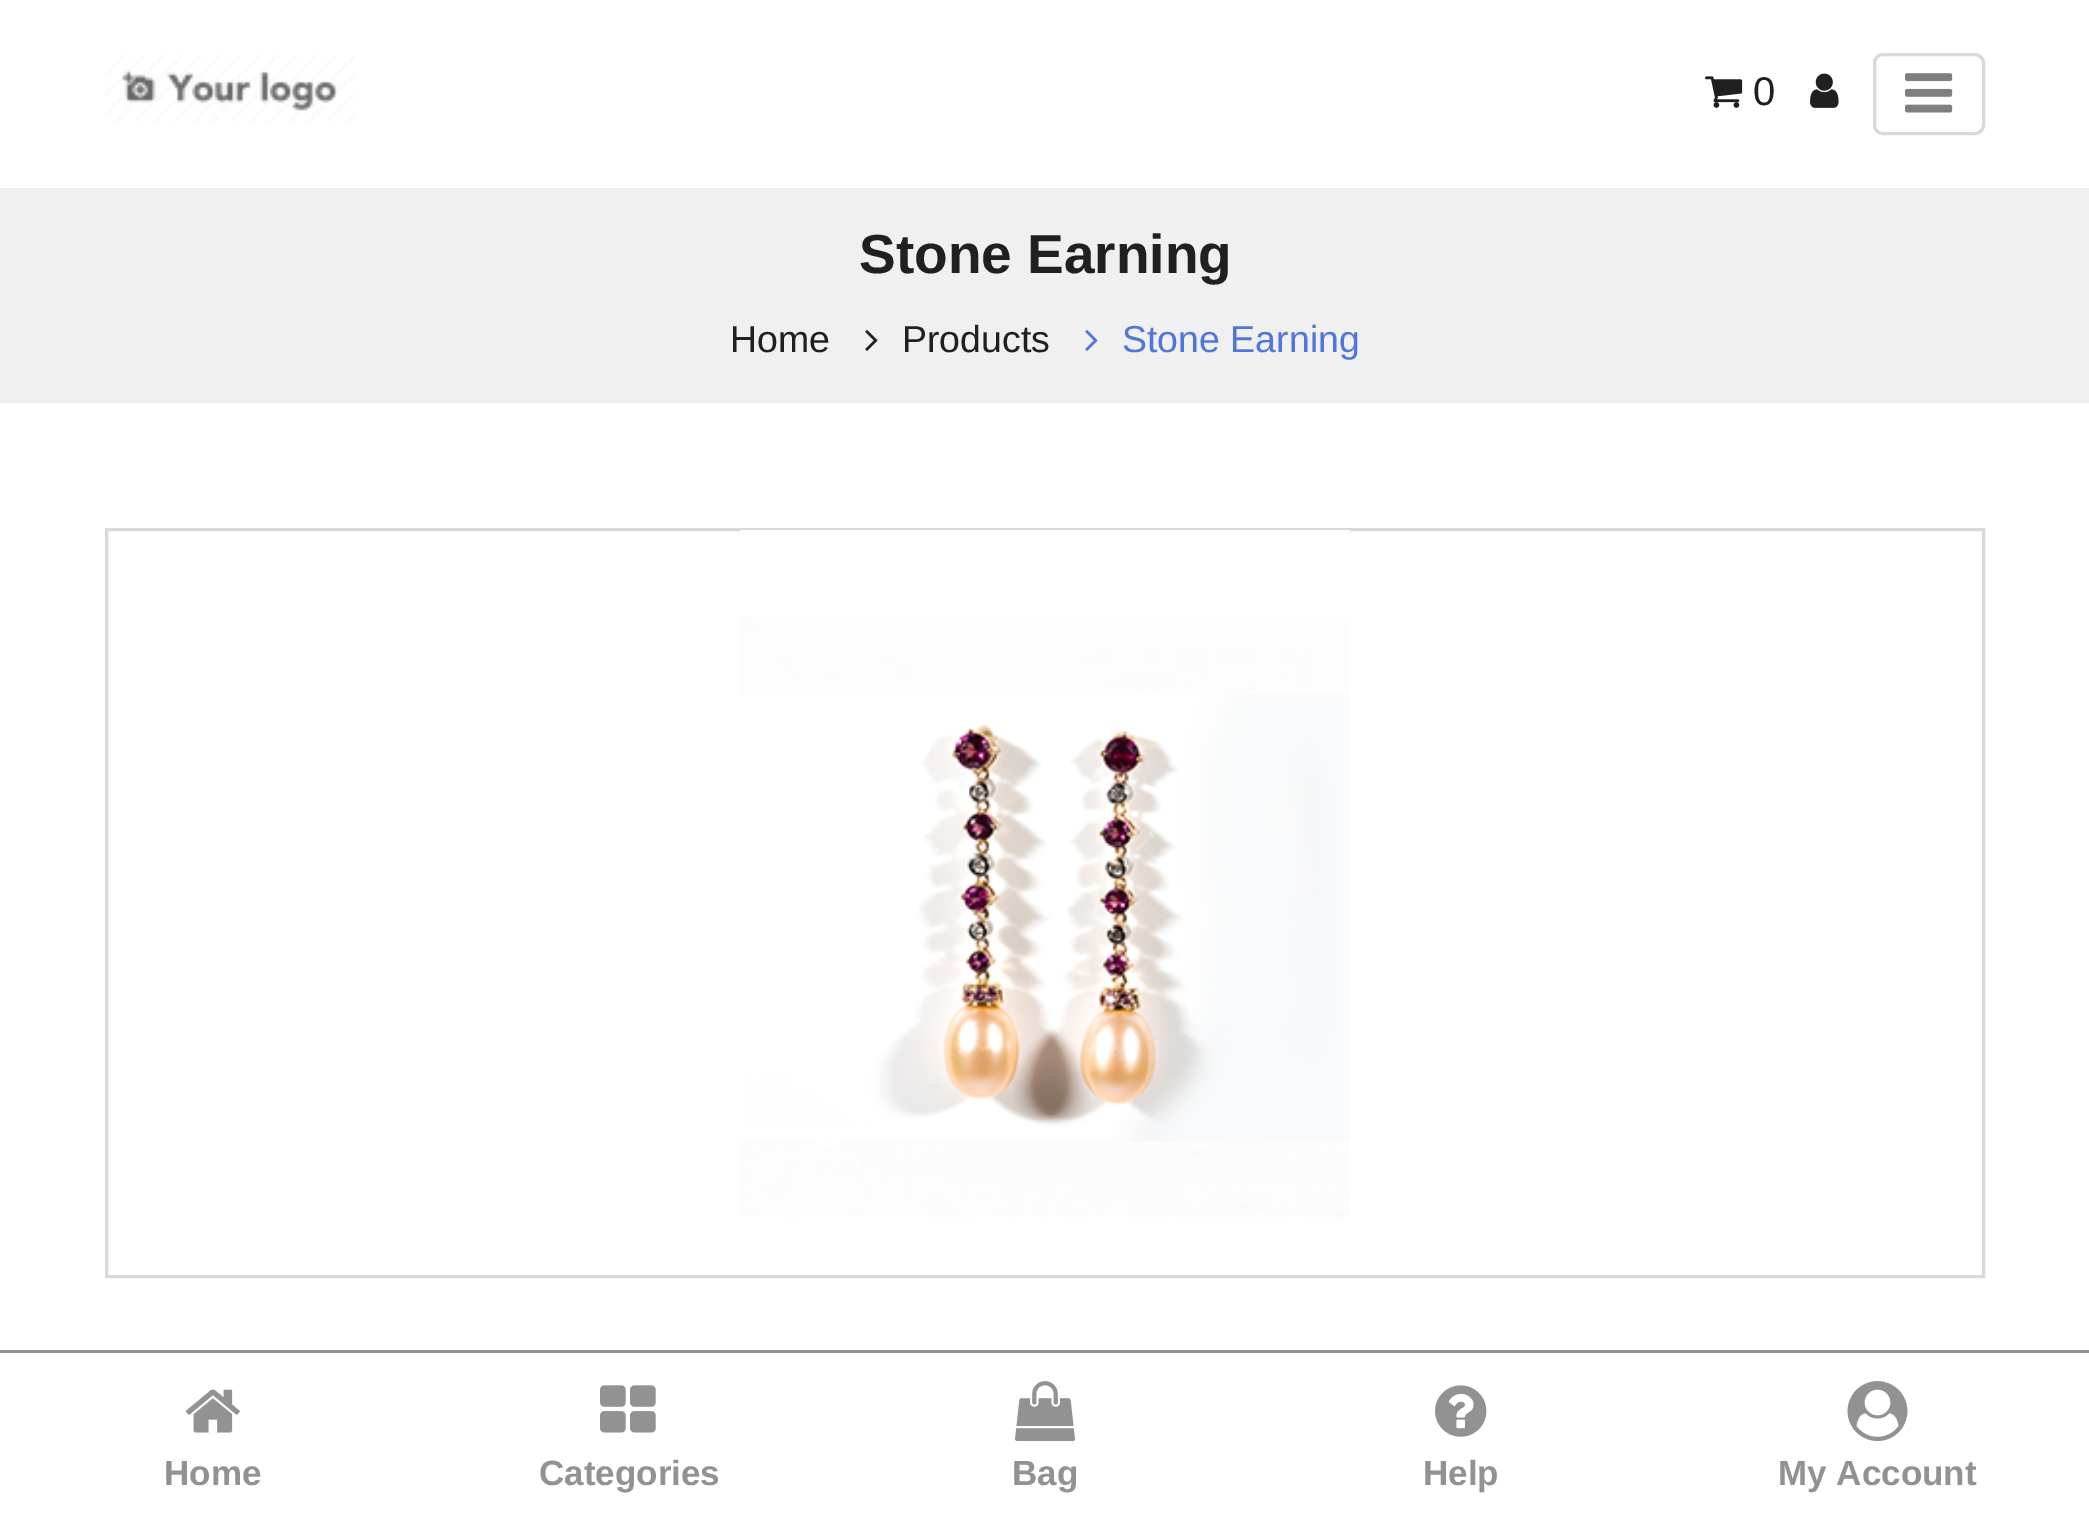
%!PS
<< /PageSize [2089 1524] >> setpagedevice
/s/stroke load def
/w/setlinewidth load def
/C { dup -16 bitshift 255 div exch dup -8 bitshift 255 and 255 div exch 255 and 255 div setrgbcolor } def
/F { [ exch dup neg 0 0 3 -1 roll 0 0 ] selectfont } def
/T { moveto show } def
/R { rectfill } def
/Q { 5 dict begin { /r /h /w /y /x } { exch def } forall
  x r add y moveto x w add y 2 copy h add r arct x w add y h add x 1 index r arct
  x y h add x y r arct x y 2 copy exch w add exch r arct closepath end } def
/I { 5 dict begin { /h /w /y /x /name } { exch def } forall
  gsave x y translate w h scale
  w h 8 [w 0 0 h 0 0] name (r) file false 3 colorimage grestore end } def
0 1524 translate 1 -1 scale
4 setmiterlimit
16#FFFFFF C
0 0 2089 1524 R
(1.rgb) 105 55 250 67 I
(2.rgb) 1705 76 38 32 I
/LiberationSans-Regular 40 F
16#202020 C
(0) 1753 105 T
(3.rgb) 1810 73 29 35 I
16#D9D9D9 C
3 w
1874.5 54.5 109 79 8.5 Q s
(4.rgb) 1905 73 48 40 I
16#F0F0F0 C
0 188 2089 215 R
/LiberationSans-Bold 55 F
16#202020 C
(Stone Earning) 859 273 T
/LiberationSans-Regular 37.5 F
(Home) 730 352 T
(5.rgb) 865 330 13 21 I
(Products) 902 352 T
(6.rgb) 1085 330 13 21 I
16#5076DB C
(Stone Earning) 1122 352 T
16#D9D9D9 C
106.5 529.5 1877 747 rectstroke
(7.rgb) 740 530 610 687 I
16#929292 C
0 1350 2089 3 R
(8.rgb) 185 1389 55 44 I
/LiberationSans-Bold 35 F
(Home) 164 1485 T
(9.rgb) 600 1385 56 48 I
(Categories) 539 1485 T
(10.rgb) 1015 1381 60 61 I
(Bag) 1012 1485 T
(11.rgb) 1435 1385 52 52 I
(Help) 1423 1485 T
(12.rgb) 1847 1381 61 61 I
(My Account) 1778 1485 T
showpage
